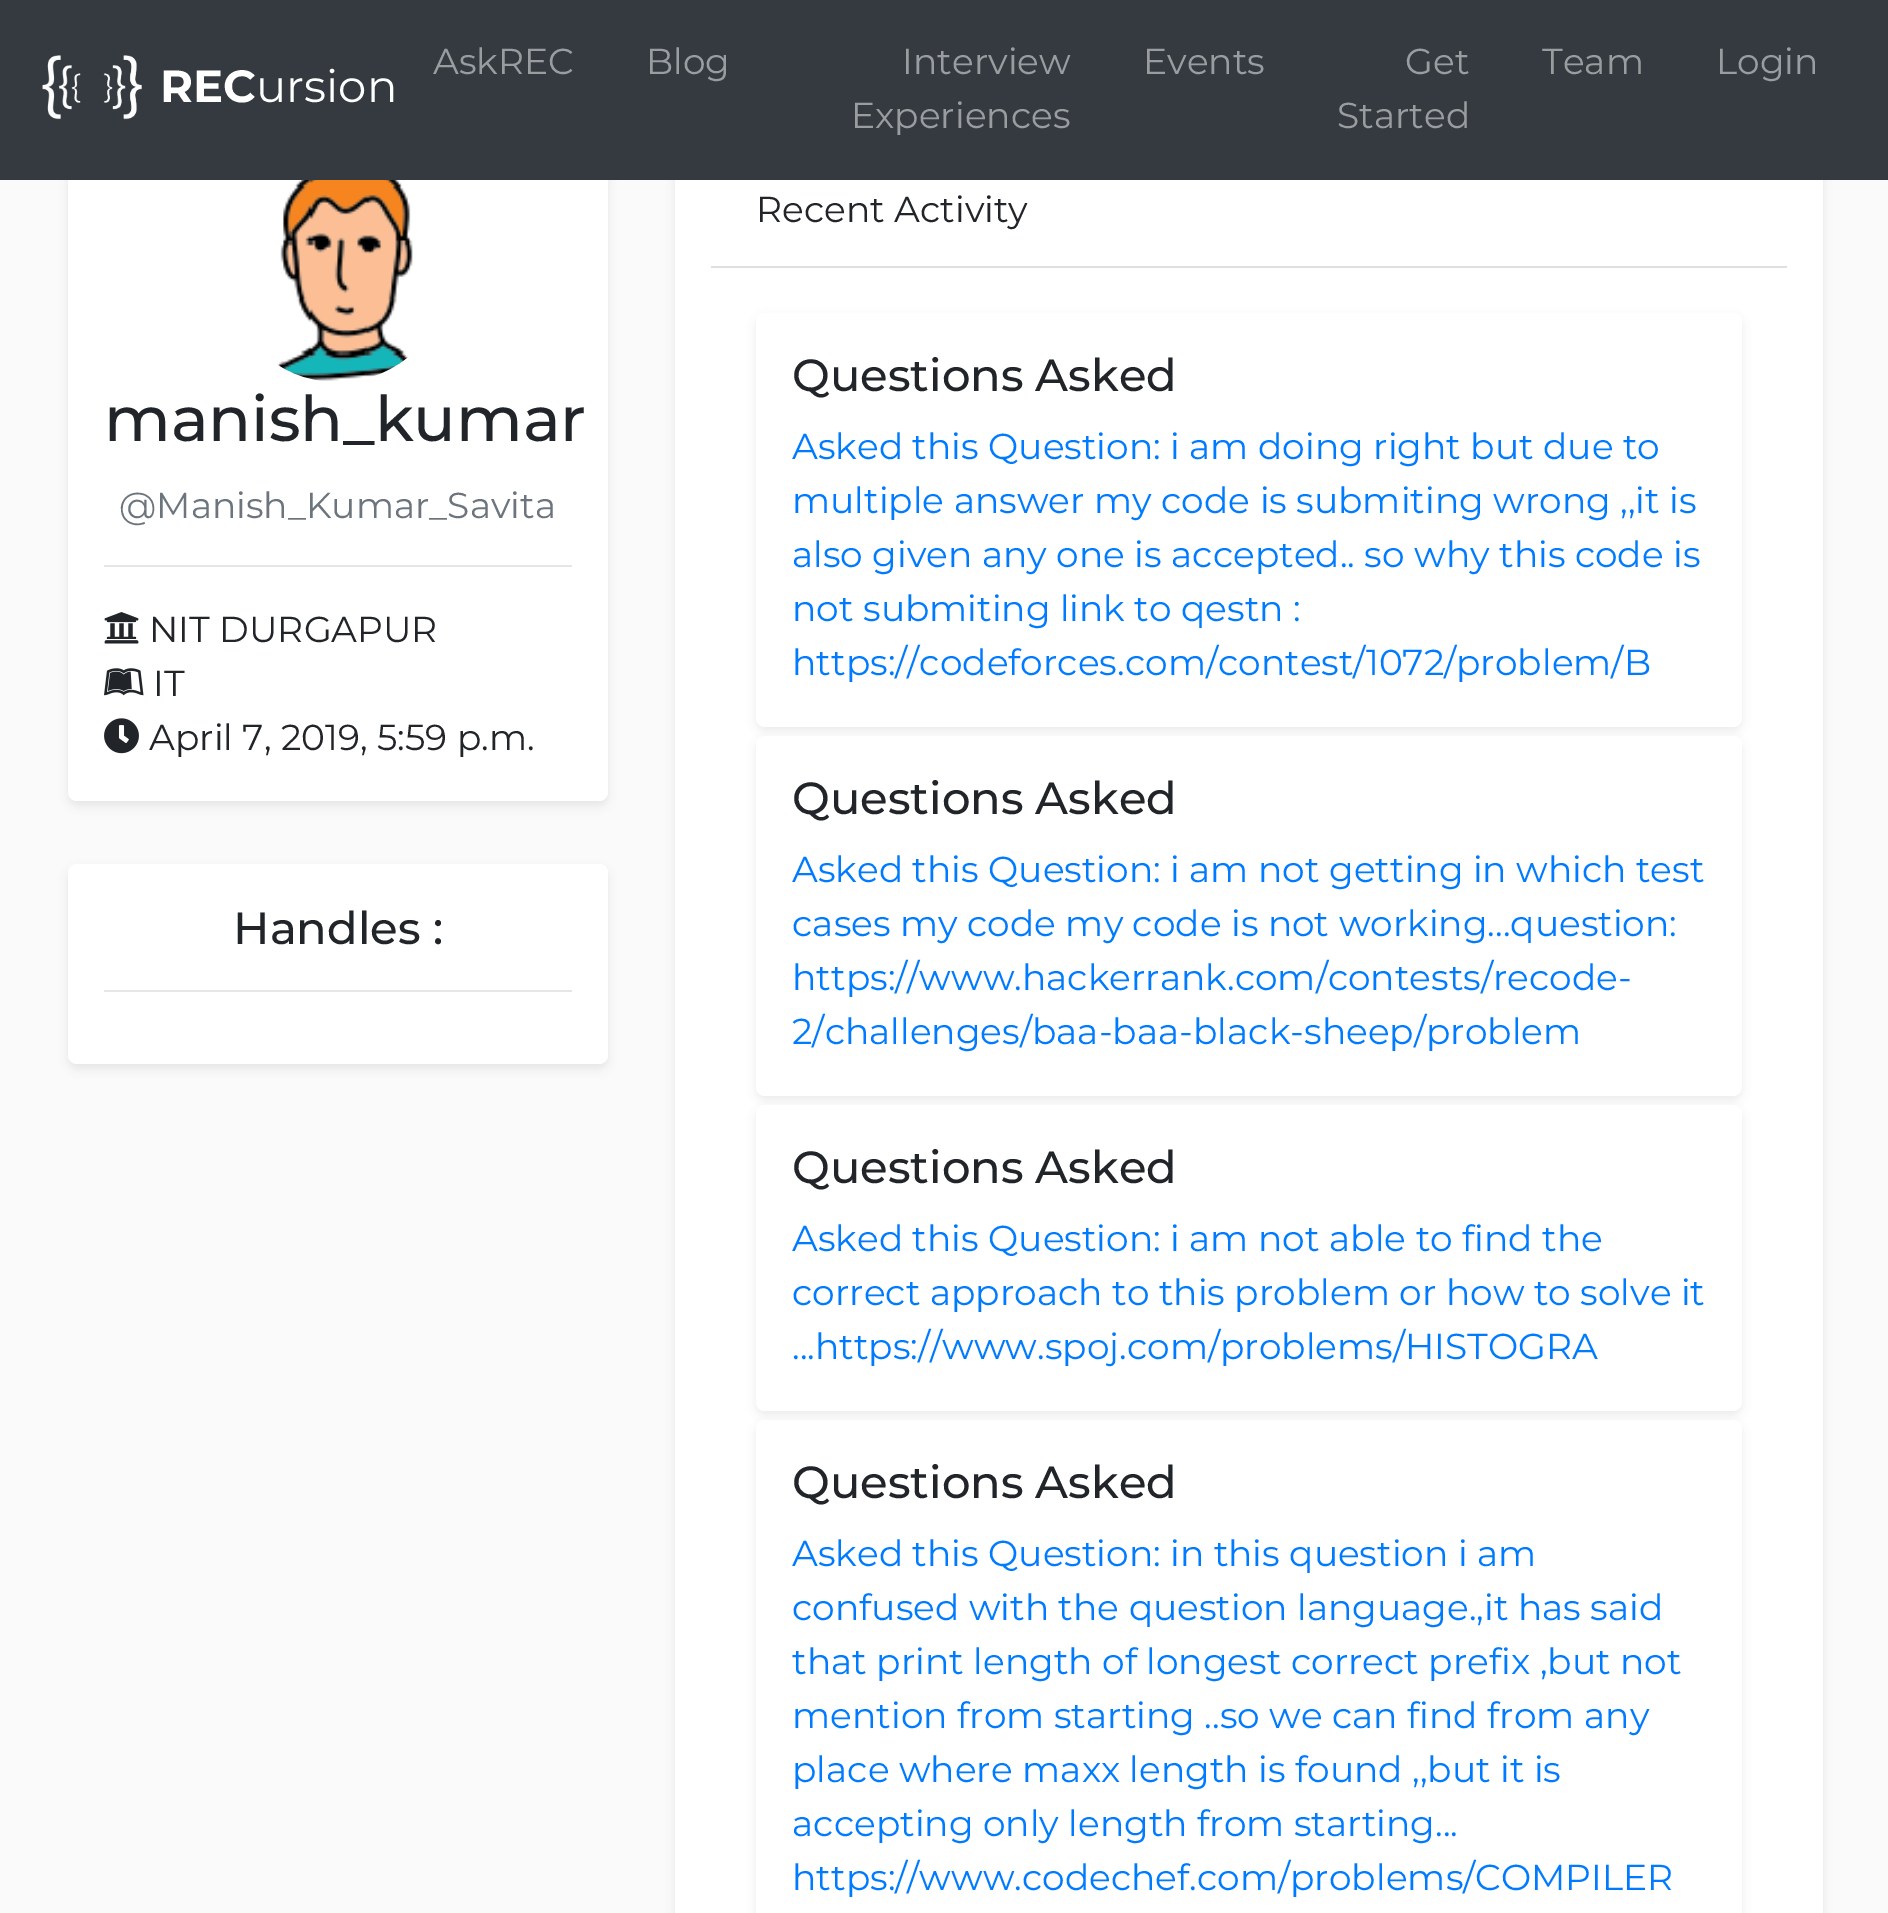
%!PS
<< /PageSize [1888 1913] /PageUsesTransparency true >> setpagedevice
/f/fill load def
/C { dup -16 bitshift 255 div exch dup -8 bitshift 255 and 255 div exch 255 and 255 div setrgbcolor } def
/F { [ exch dup neg 0 0 3 -1 roll 0 0 ] selectfont } def
/T { moveto show } def
/R { rectfill } def
/A { dup .setfillconstantalpha .setstrokeconstantalpha } def
/Q { 5 dict begin { /r /h /w /y /x } { exch def } forall
  x r add y moveto x w add y 2 copy h add r arct x w add y h add x 1 index r arct
  x y h add x y r arct x y 2 copy exch w add exch r arct closepath end } def
/S { 12 dict begin { /a /b /q /h /w /y /x } { exch def } forall gsave /was 0 def
  9 -2 -9 { dup b mul 4 div /e exch def 1 sub .425 mul 2.718 exch exp 1 add a .99 .min exch div /now exch def
    1 1 now sub 1 was sub div sub A /was now def
    w h .min e 2 mul add 0 gt { x e sub y e sub w e 2 mul add h e 2 mul add
      q e add b .6 mul add w h .min 2 div e add .min 0 .max Q fill } if } for grestore end } def
/I { 5 dict begin { /h /w /y /x /name } { exch def } forall
  gsave x y translate w h scale
  w h 8 [w 0 0 h 0 0] name (r) file false 3 colorimage grestore end } def
0 .pushpdf14devicefilter
0 1913 translate 1 -1 scale
4 setmiterlimit
16#FAFAFA C
0 0 1888 1913 R
16#000000 C
68 126 540 680 9 4.5 .07 S
16#FFFFFF C
68 122 540 679 9 Q f
16#000000 C
675 126 1148 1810 9 4.5 .07 S
16#343A40 C
0 0 1888 180 R
(1.rgb) 42 55 100 65 I
/Montserrat-Bold 45 F
16#FFFFFF C
(REC) 160 102 T
/Montserrat-Regular 45 F
(ursion) 256 102 T
/Montserrat-Regular 36 F
16#9A9DA0 C
(AskREC) 433 74 T
(Blog) 646 74 T
(Interview) 902 74 T
(Experiences) 851 128 T
(Events) 1143 74 T
(Get) 1405 74 T
(Started) 1337 128 T
(Team) 1542 74 T
(Login) 1716 74 T
(2.rgb) 278 180 135 201 I
/Montserrat-Medium 63 F
16#212529 C
(manish_kumar) 104 441 T
/Montserrat-Regular 36 F
16#6C757D C
(@Manish_Kumar_Savita) 119 518 T
16#E6E6E6 C
104 565 468 2 R
(3.rgb) 104 612 35 32 I
16#212529 C
(NIT DURGAPUR) 149 642 T
(4.rgb) 104 668 40 28 I
(IT) 153 696 T
(5.rgb) 104 718 35 36 I
(April 7, 2019, 5:59 p.m.) 149 750 T
16#000000 C
68 869 540 200 9 4.5 .07 S
16#FFFFFF C
68 864 540 200 9 Q f
/Montserrat-Medium 45 F
16#212529 C
(Handles :) 233 944 T
16#E6E6E6 C
104 990 468 2 R
16#FFFFFF C
675 180 1148 1733 R
16#DFDFDF C
711 266 1076 2 R
/Montserrat-Regular 36 F
16#212529 C
(Recent Activity) 756 222 T
16#000000 C
756 317 986 414 9 4.5 .07 S
16#FFFFFF C
756 313 986 414 9 Q f
/Montserrat-Medium 45 F
16#212529 C
(Questions Asked) 792 391 T
/Montserrat-Regular 36 F
16#007BFF C
(Asked this Question: i am doing right but due to) 792 459 T
(multiple answer my code is submiting wrong ,,it is) 792 513 T
(also given any one is accepted.. so why this code is) 792 567 T
(not submiting link to qestn :) 792 621 T
(https://codeforces.com/contest/1072/problem/B) 792 675 T
16#000000 C
756 740 986 360 9 4.5 .07 S
16#FFFFFF C
756 736 986 360 9 Q f
/Montserrat-Medium 45 F
16#212529 C
(Questions Asked) 792 814 T
/Montserrat-Regular 36 F
16#007BFF C
(Asked this Question: i am not getting in which test) 792 882 T
(cases my code my code is not working...question:) 792 936 T
(https://www.hackerrank.com/contests/recode-) 792 990 T
(2/challenges/baa-baa-black-sheep/problem) 792 1044 T
16#000000 C
756 1109 986 306 9 4.5 .07 S
16#FFFFFF C
756 1105 986 306 9 Q f
/Montserrat-Medium 45 F
16#212529 C
(Questions Asked) 792 1183 T
/Montserrat-Regular 36 F
16#007BFF C
(Asked this Question: i am not able to find the) 792 1251 T
(correct approach to this problem or how to solve it) 792 1305 T
(...https://www.spoj.com/problems/HISTOGRA) 792 1359 T
16#000000 C
756 1424 986 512 9 4.5 .07 S
16#FFFFFF C
756 1420 986 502 9 Q f
/Montserrat-Medium 45 F
16#212529 C
(Questions Asked) 792 1498 T
/Montserrat-Regular 36 F
16#007BFF C
(Asked this Question: in this question i am) 792 1566 T
(confused with the question language.,it has said) 792 1620 T
(that print length of longest correct prefix ,but not) 792 1674 T
(mention from starting ..so we can find from any) 792 1728 T
(place where maxx length is found ,,but it is) 792 1782 T
(accepting only length from starting...) 792 1836 T
(https://www.codechef.com/problems/COMPILER) 792 1890 T
.poppdf14devicefilter showpage
